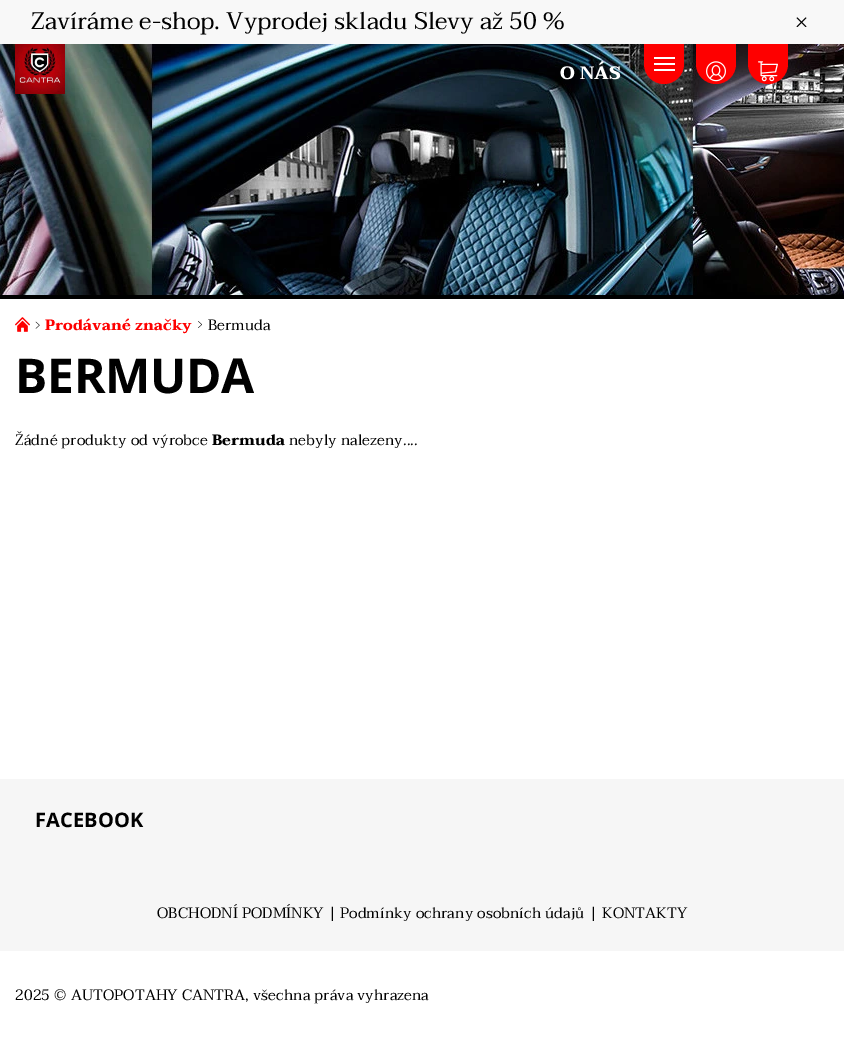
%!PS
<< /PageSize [844 1048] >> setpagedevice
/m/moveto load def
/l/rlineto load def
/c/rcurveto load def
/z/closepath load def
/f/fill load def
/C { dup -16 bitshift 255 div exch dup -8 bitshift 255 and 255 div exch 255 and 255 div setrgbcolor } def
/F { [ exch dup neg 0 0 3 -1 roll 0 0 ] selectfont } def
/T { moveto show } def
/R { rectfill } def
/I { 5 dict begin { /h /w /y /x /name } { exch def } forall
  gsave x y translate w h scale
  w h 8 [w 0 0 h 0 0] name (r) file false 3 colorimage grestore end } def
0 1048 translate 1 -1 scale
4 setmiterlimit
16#FFFFFF C
0 0 844 1048 R
16#F8F8F8 C
0 0 844 44 R
/Taviraj-Regular 24 F
16#000000 C
(Zavíráme e-shop. Vyprodej skladu Slevy až 50 %) 31 29 T
797.5 17.5 m 9 9 l -1 .5 l -9 -9 l z f
805.5 17.5 m 1 .5 l -9 9 l -1 -.5 l z f
(1.rgb) 0 44 844 251 I
0 295 844 4 R
(2.rgb) 15 44 50 50 I
/Taviraj-Bold 18 F
16#FFFFFF C
560 79 m .1 0 (O NÁS) ashow
16#FE0000 C
644 44 m 40 0 l 0 20 l 0 11 -9 20 -20 20 c -11 0 -20 -9 -20 -20 c z f
16#FFFFFF C
654 57 21 2 R
654 63 21 2 R
654 69 21 2 R
16#FE0000 C
696 44 m 40 0 l 0 20 l 0 11 -9 20 -20 20 c -11 0 -20 -9 -20 -20 c z f
(3.rgb) 706 61 20 21 I
748 44 m 40 0 l 0 20 l 0 11 -9 20 -20 20 c -11 0 -20 -9 -20 -20 c z f
(4.rgb) 758 61 20 21 I
(5.rgb) 15 317 15 15 I
(6.rgb) 35 321 5 8 I
/Taviraj-Bold 15 F
45 330 m .1 0 (Prodávané značky) ashow
(7.rgb) 198 321 4 7 I
/Taviraj-Regular 15 F
16#000000 C
208 330 m .1 0 (Bermuda) ashow
/OpenSans-Bold 48 F
15 393 m -.25 0 (BERMUDA) ashow
/Taviraj-Regular 15 F
15 445 m .1 0 (Žádné produkty od výrobce) ashow
/Taviraj-Bold 15 F
212 445 m .1 0 (Bermuda) ashow
/Taviraj-Regular 15 F
289 445 m .1 0 (nebyly nalezeny....) ashow
16#F6F6F6 C
0 779 844 172 R
/OpenSans-Bold 20 F
16#000000 C
35 827 m .1 0 (FACEBOOK) ashow
/Taviraj-Regular 15 F
157 918 m .1 0 (OBCHODNÍ PODMÍNKY) ashow
329 918 m .1 0 (|) ashow
340 918 m .1 0 (Podmínky ochrany osobních údajů) ashow
590 918 m .1 0 (|) ashow
602 918 m .1 0 (KONTAKTY) ashow
15 1000 m .1 0 (2025 © AUTOPOTAHY CANTRA, všechna práva vyhrazena) ashow
showpage
